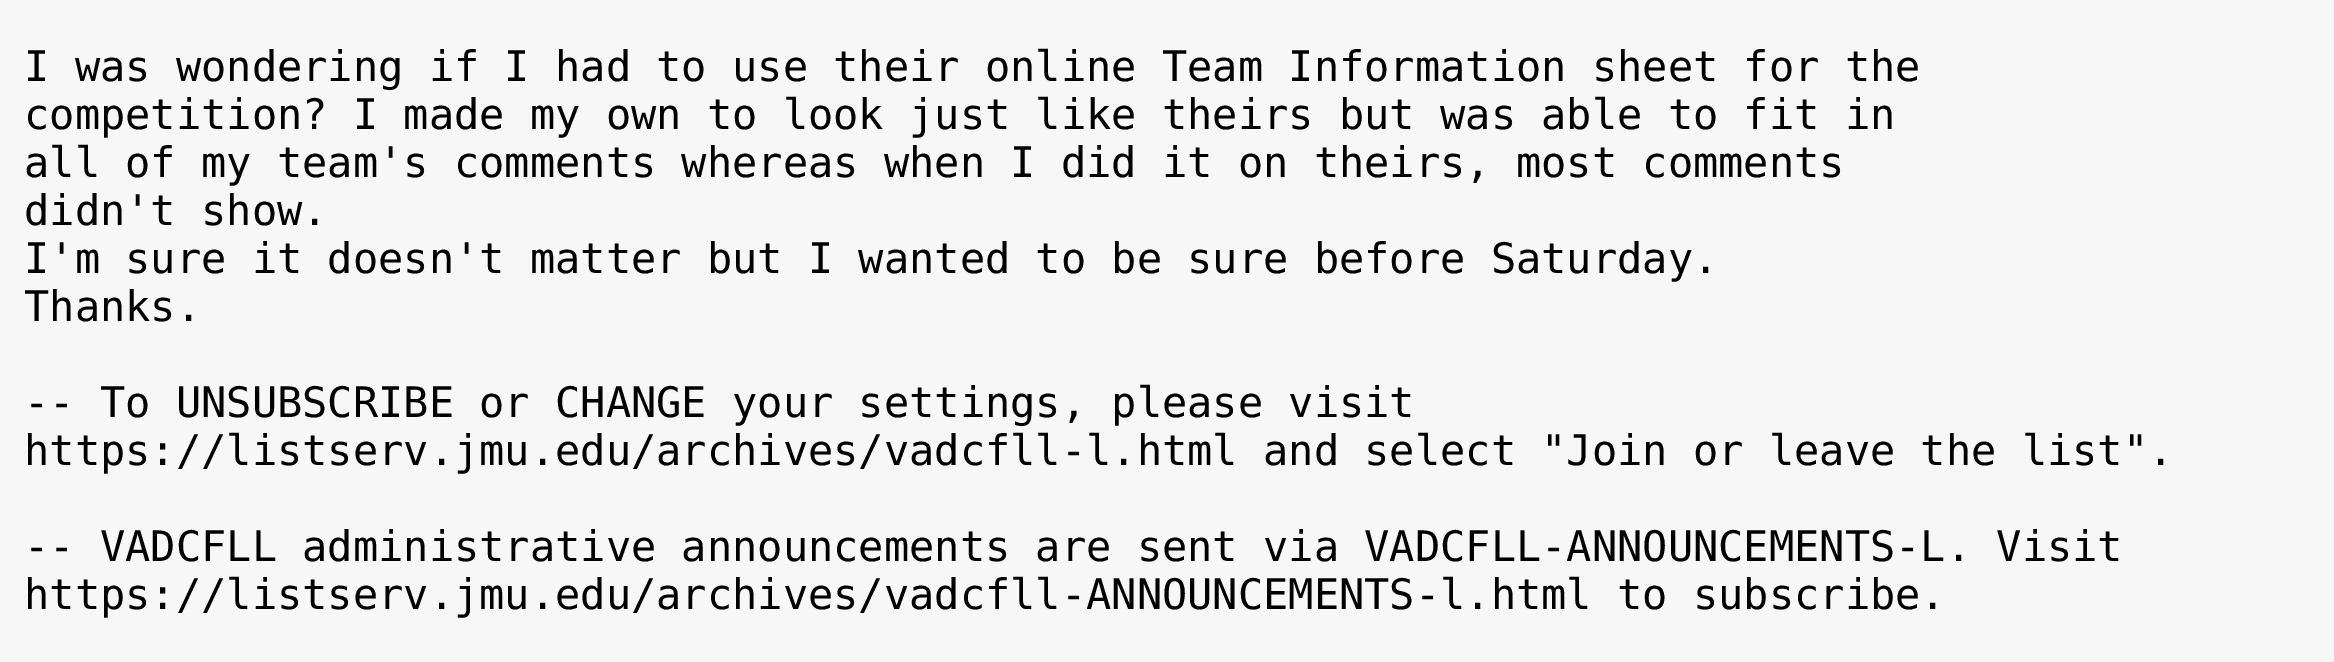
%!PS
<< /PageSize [2334 662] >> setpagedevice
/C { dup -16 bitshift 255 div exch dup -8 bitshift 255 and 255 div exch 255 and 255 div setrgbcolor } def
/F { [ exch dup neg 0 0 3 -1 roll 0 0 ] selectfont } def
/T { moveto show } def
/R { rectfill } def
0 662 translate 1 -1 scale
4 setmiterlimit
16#F7F7F7 C
0 0 2334 662 R
/DejaVuSansMono-Regular 42 F
16#000000 C
(I was wondering if I had to use their online Team Information sheet for the) 24 81 T
(competition? I made my own to look just like theirs but was able to fit in) 24 129 T
(all of my team's comments whereas when I did it on theirs, most comments) 24 177 T
(didn't show.) 24 225 T
(I'm sure it doesn't matter but I wanted to be sure before Saturday.) 24 273 T
(Thanks.) 24 321 T
(-- To UNSUBSCRIBE or CHANGE your settings, please visit) 24 417 T
(https://listserv.jmu.edu/archives/vadcfll-l.html and select "Join or leave the list".) 24 465 T
(-- VADCFLL administrative announcements are sent via VADCFLL-ANNOUNCEMENTS-L. Visit) 24 561 T
(https://listserv.jmu.edu/archives/vadcfll-ANNOUNCEMENTS-l.html to subscribe.) 24 609 T
showpage
